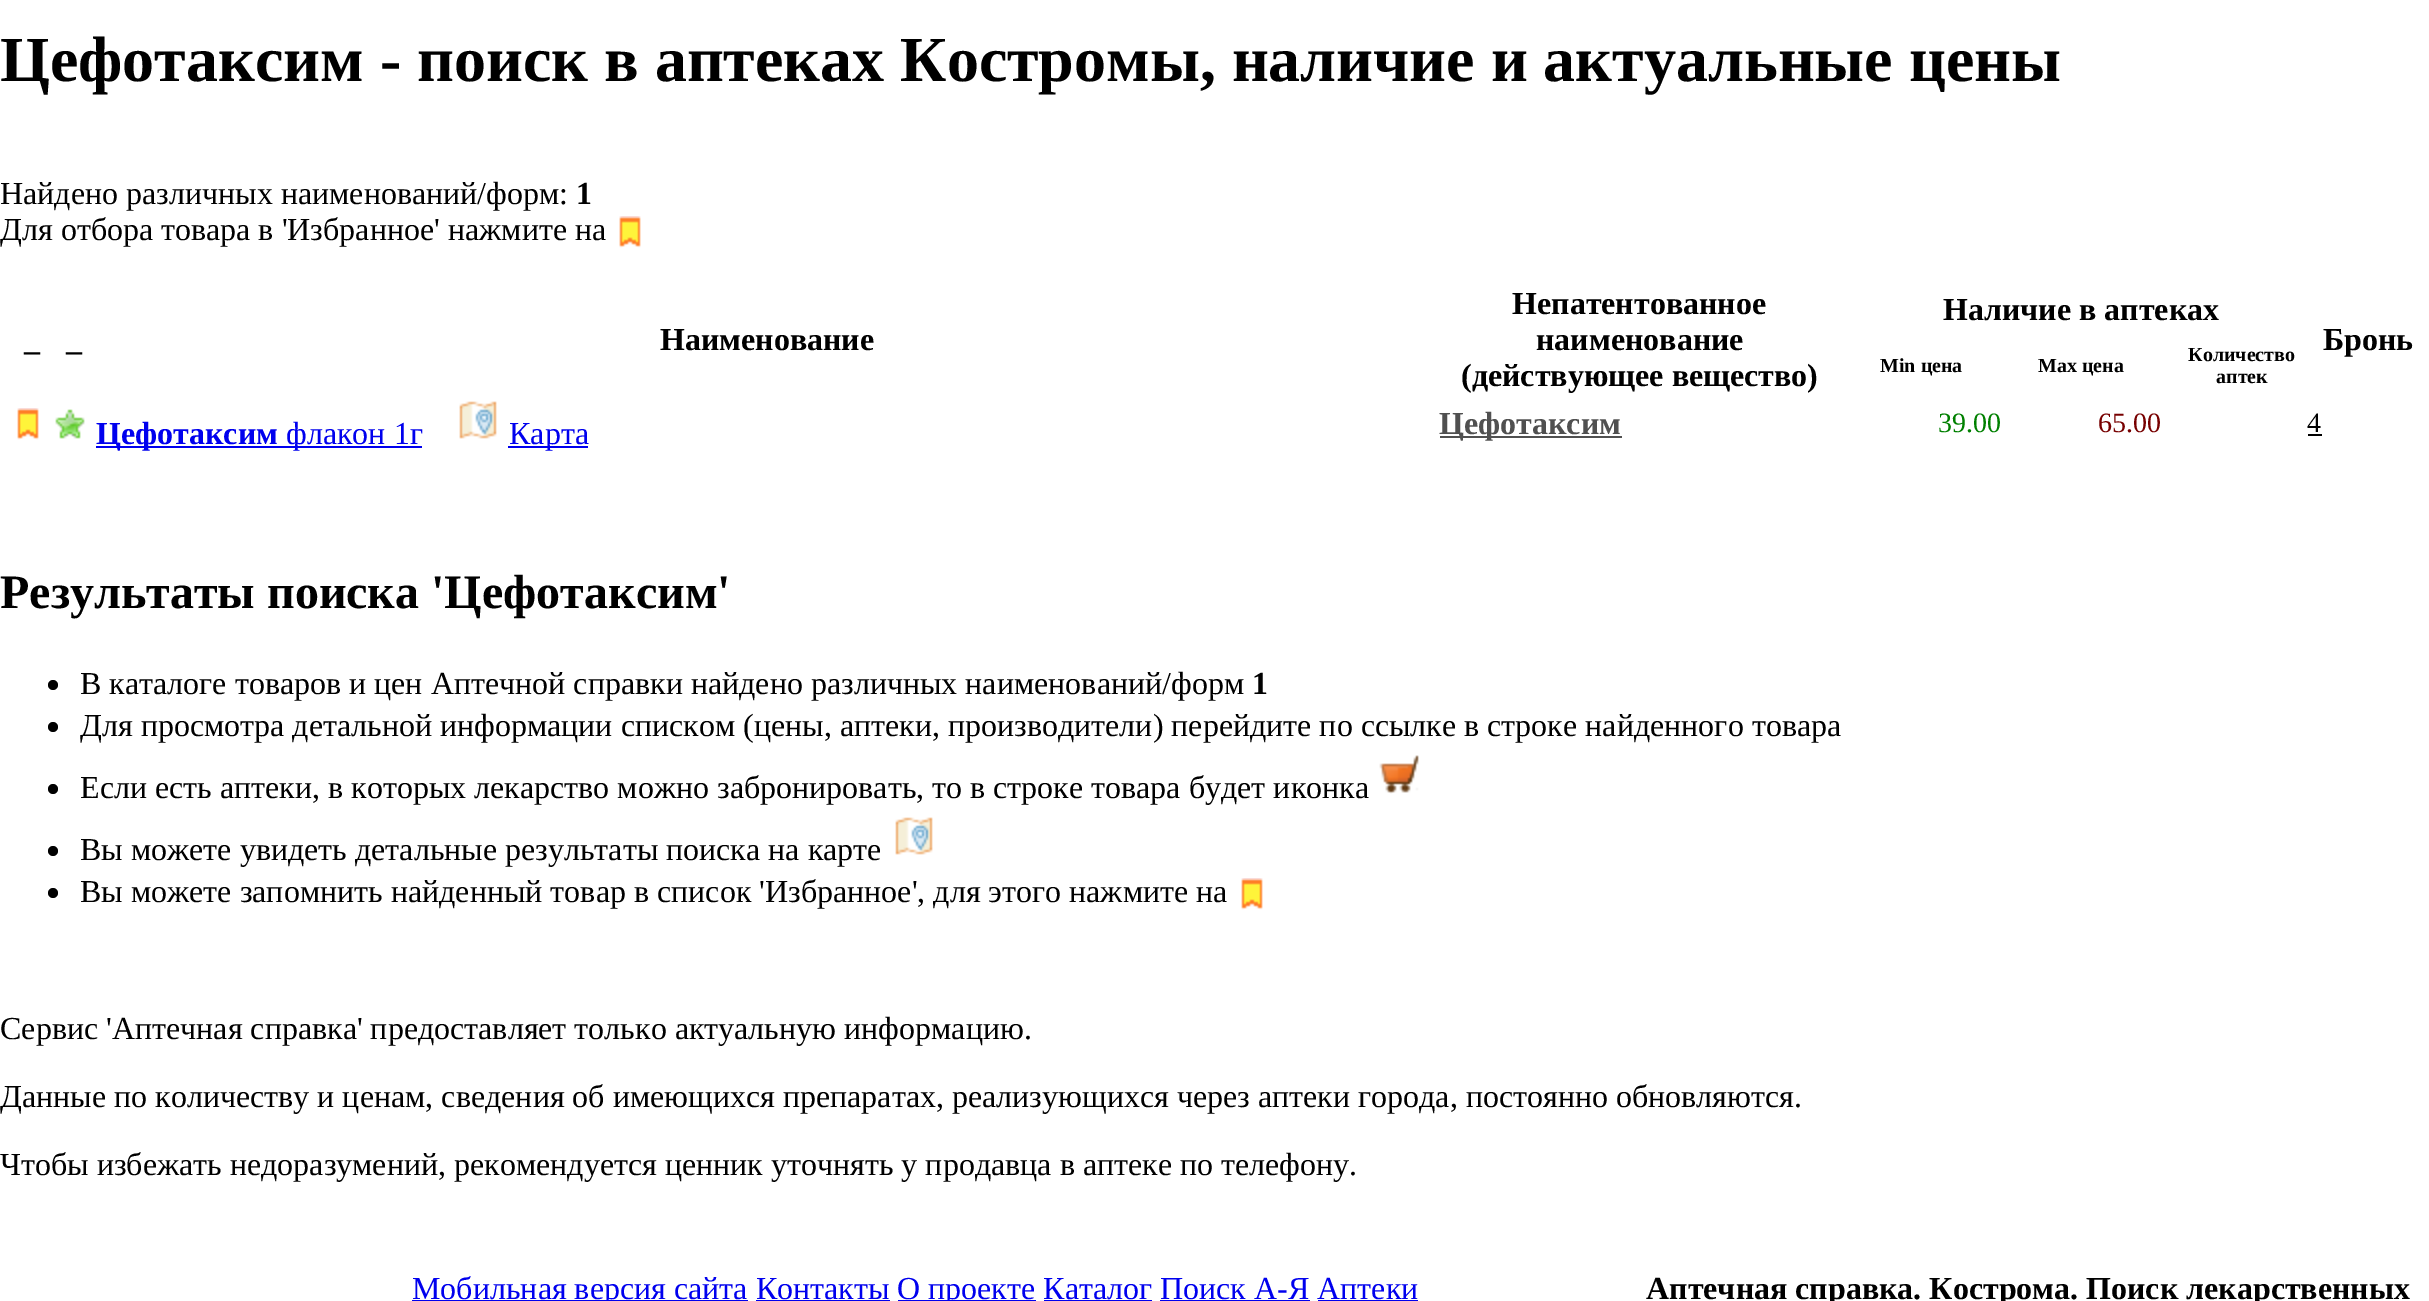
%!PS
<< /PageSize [2429 1301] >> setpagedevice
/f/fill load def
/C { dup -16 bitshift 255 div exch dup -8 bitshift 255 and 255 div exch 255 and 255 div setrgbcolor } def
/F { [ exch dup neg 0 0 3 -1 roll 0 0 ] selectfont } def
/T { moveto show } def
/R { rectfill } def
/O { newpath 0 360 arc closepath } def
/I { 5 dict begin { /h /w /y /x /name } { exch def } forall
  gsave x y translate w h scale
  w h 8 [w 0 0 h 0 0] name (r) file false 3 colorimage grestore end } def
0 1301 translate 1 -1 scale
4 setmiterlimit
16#FFFFFF C
0 0 2429 1301 R
/LiberationSerif-Bold 64 F
16#000000 C
(Цефотаксим - поиск в аптеках Костромы, наличие и актуальные цены) 0 81 T
/LiberationSerif-Regular 32 F
(Найдено различных наименований/форм:) 0 204 T
/LiberationSerif-Bold 32 F
(1) 576 204 T
/LiberationSerif-Regular 32 F
(Для отбора товара в 'Избранное' нажмите на) 0 240 T
(1.rgb) 619 216 22 32 I
/LiberationSerif-Bold 32 F
(Непатентованное) 1512 314 T
(наименование) 1536 350 T
(\(действующее вещество\)) 1461 386 T
(Наличие в аптеках) 1943 320 T
(_) 24 350 T
(_) 66 350 T
(Наименование) 660 350 T
(Бронь) 2323 350 T
/LiberationSerif-Bold 20 F
(Мin цена) 1880 372 T
(Мax цена) 2038 372 T
(Количество) 2188 361 T
(аптек) 2216 383 T
(1.rgb) 17 408 22 32 I
(2.rgb) 55 409 30 30 I
16#0000EE C
96 446 326 2 R
/LiberationSerif-Bold 32 F
(Цефотаксим) 96 444 T
/LiberationSerif-Regular 32 F
(флакон 1г) 286 444 T
(3.rgb) 459 401 38 38 I
508 446 80 2 R
(Карта) 509 444 T
16#505050 C
1440 436 182 2 R
/LiberationSerif-Bold 32 F
(Цефотаксим) 1439 434 T
/LiberationSerif-Regular 28 F
16#008000 C
(39.00) 1938 432 T
16#770000 C
(65.00) 2098 432 T
16#000000 C
(4) 2307 432 T
2308 434 14 2 R
/LiberationSerif-Bold 48 F
(Результаты поиска 'Цефотаксим') 0 608 T
53 685 5 O f
/LiberationSerif-Regular 32 F
(В каталоге товаров и цен Аптечной справки найдено различных наименований/форм) 80 694 T
/LiberationSerif-Bold 32 F
(1) 1252 694 T
53 727 5 O f
/LiberationSerif-Regular 32 F
(Для просмотра детальной информации списком \(цены, аптеки, производители\) перейдите по ссылке в строке найденного товара) 80 736 T
53 789 5 O f
(Если есть аптеки, в которых лекарство можно забронировать, то в строке товара будет иконка) 80 798 T
(4.rgb) 1379 755 40 39 I
53 851 5 O f
(Вы можете увидеть детальные результаты поиска на карте) 80 860 T
(3.rgb) 895 817 38 38 I
53 893 5 O f
(Вы можете запомнить найденный товар в список 'Избранное', для этого нажмите на) 80 902 T
(1.rgb) 1241 878 22 32 I
(Сервис 'Аптечная справка' предоставляет только актуальную информацию.) 0 1039 T
(Данные по количеству и ценам, сведения об имеющихся препаратах, реализующихся через аптеки города, постоянно обновляются.) 0 1107 T
(Чтобы избежать недоразумений, рекомендуется ценник уточнять у продавца в аптеке по телефону.) 0 1175 T
16#0000EE C
412 1300 336 1 R
(Мобильная версия сайта Контакты) 412 1299 T
898 1300 138 1 R
(О проекте Каталог Поиск А-Я Аптеки) 897 1299 T
756 1300 134 1 R
1044 1300 108 1 R
1160 1300 150 1 R
1318 1300 100 1 R
/LiberationSerif-Bold 32 F
16#000000 C
(Аптечная справка. Кострома. Поиск лекарственных) 1646 1299 T
showpage
